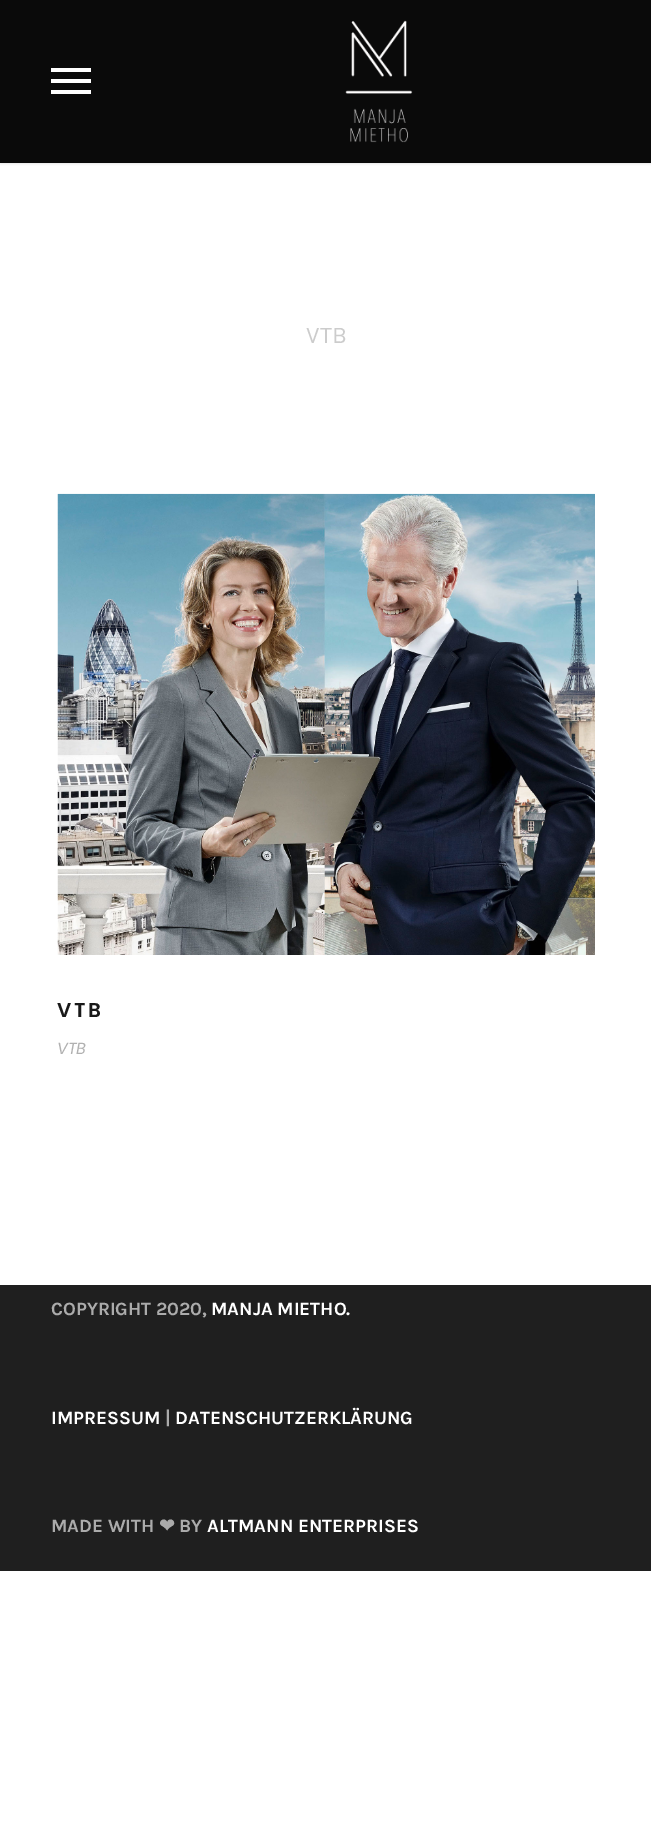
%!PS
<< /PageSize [651 1830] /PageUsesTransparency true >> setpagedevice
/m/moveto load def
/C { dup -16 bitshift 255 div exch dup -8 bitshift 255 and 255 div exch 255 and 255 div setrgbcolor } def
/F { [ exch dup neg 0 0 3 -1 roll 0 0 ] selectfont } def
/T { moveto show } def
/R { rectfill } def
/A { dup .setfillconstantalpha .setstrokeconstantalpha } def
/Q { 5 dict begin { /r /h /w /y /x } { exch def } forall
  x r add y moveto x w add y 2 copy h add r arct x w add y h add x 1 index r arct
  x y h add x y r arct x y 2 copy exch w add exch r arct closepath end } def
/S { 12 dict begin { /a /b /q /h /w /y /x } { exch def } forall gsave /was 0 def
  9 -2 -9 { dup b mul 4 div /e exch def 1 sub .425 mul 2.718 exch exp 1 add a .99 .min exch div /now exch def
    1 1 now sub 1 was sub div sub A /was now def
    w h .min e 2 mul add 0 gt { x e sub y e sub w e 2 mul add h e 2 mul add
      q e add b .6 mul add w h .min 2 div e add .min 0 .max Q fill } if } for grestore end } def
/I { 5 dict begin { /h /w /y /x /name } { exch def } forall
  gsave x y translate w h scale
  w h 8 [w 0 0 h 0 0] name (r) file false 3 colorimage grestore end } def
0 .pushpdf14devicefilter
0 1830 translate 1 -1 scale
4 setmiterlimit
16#FFFFFF C
0 0 651 1830 R
16#000000 C
0 1 651 163 0 1 .1 S
16#0A0A0A C
0 0 651 163 R
16#FFFFFF C
51 68 40 4 R
51 79 40 4 R
51 90 40 4 R
(1.rgb) 345 20 68 123 I
/Karla-Regular 24 F
16#CCCCCC C
(VTB) 306 343 T
(2.rgb) 57 493 538 462 I
/Poppins-SemiBold 20 F
16#191919 C
57 1017 m 2.5 0 (VTB) ashow
/Poppins-Italic 16 F
16#B1B1B1 C
(VTB) 57 1054 T
16#1F1F1F C
0 1285 651 286 R
/Karla-Bold 18.75 F
16#ABABAB C
(COPYRIGHT 2020,) 51 1315 T
16#FFFFFF C
(MANJA MIETHO.) 211 1315 T
(IMPRESSUM) 51 1424 T
16#ABABAB C
(|) 165 1424 T
16#FFFFFF C
(DATENSCHUTZERKLÄRUNG) 175 1424 T
16#ABABAB C
(MADE WITH) 51 1532 T
/DejaVuSans-Bold 18.75 F
(❤) 159 1532 T
/Karla-Bold 18.75 F
(BY) 179 1532 T
16#FFFFFF C
(ALTMANN ENTERPRISES) 207 1532 T
.poppdf14devicefilter showpage
